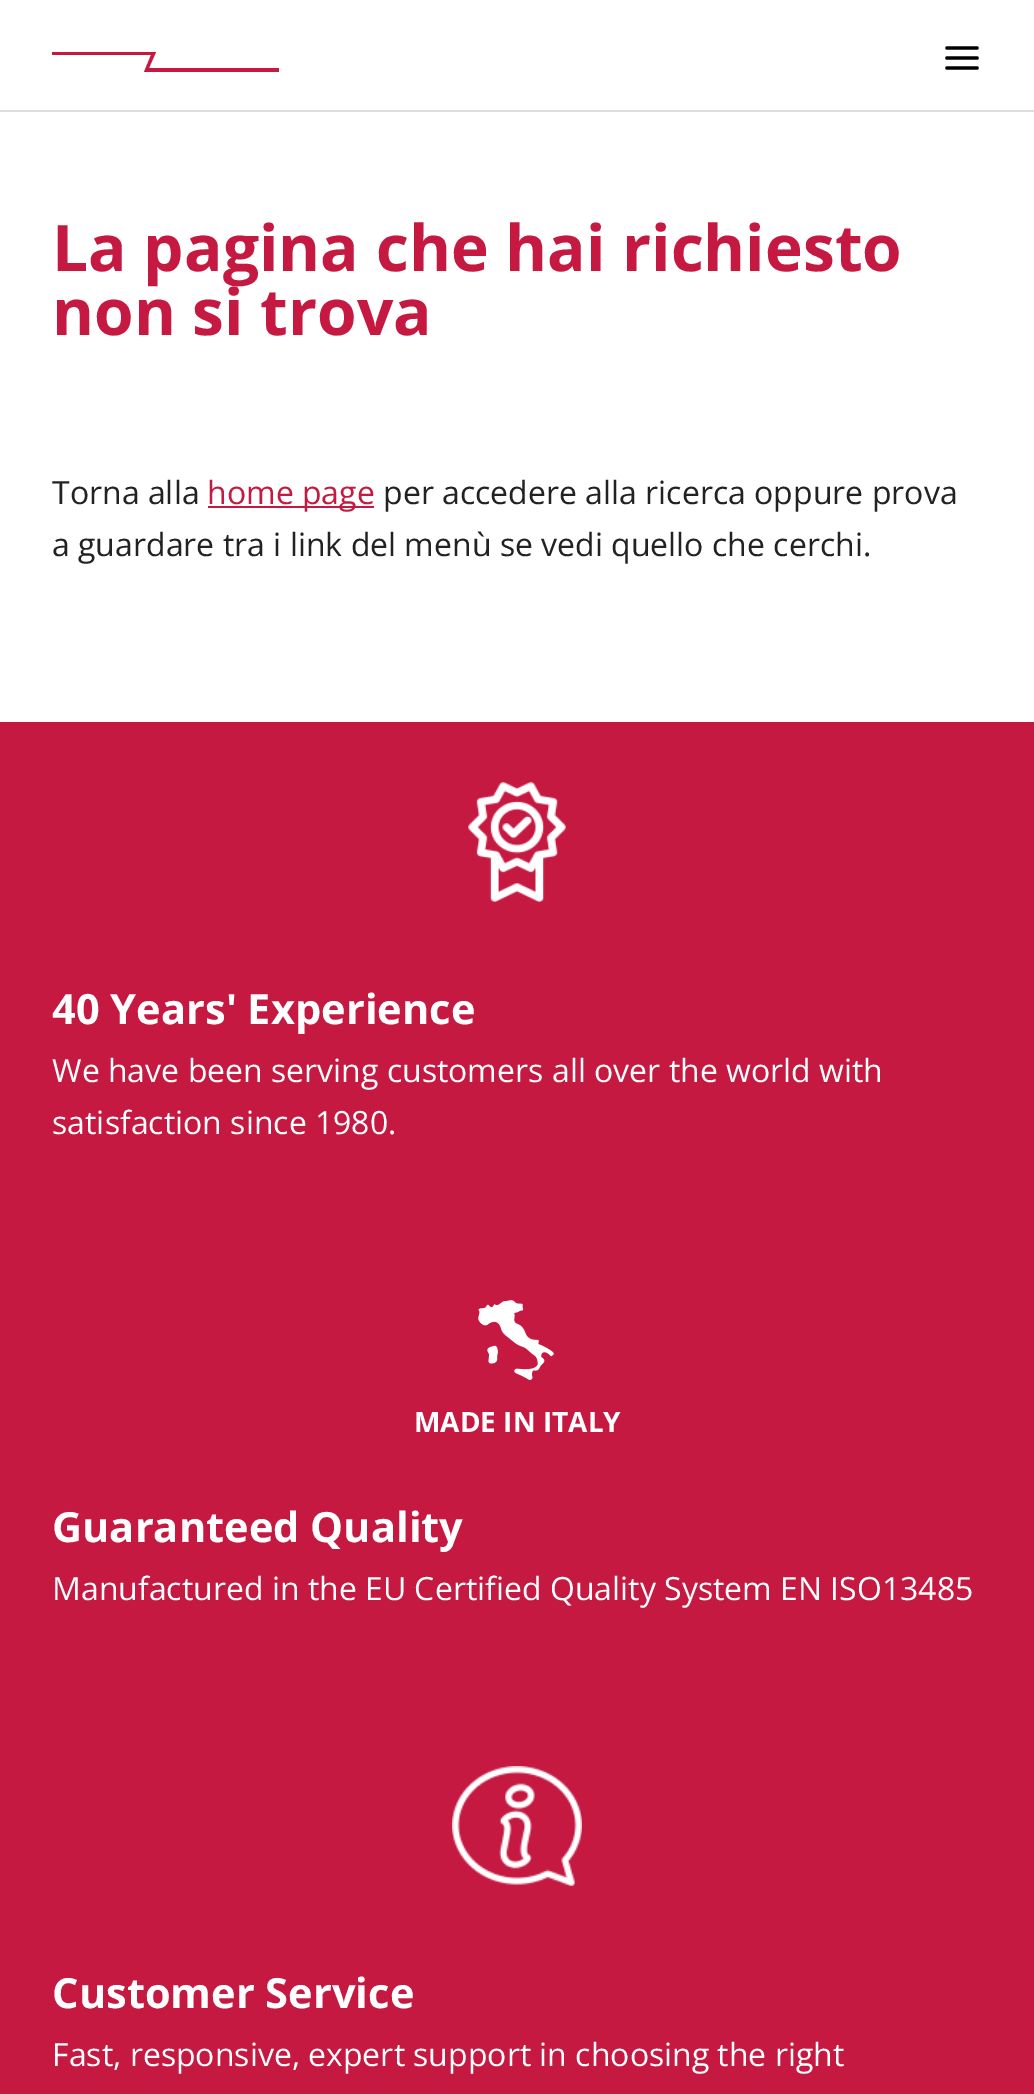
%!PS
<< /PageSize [1034 2094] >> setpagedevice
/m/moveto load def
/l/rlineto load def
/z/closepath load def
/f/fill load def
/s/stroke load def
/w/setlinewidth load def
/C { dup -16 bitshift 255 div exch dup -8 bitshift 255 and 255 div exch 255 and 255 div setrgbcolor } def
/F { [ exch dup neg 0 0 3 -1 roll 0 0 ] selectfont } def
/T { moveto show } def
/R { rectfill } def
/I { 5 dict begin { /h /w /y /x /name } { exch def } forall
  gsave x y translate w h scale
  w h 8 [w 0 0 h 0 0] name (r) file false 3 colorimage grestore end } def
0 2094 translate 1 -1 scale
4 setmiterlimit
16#FFFFFF C
0 0 1034 2094 R
16#DDDDDD C
0 110 1034 2 R
16#C51941 C
52 52 m 0 3 l 99 0 l -7 17 l 135 0 l 0 -4 l -130 0 l 7 -16 l z f
16#000000 C
3.3 w
1 setlinecap
1 setlinejoin
947 58 m 30 0 l 947 48 m 30 0 l 947 68 m 30 0 l s
/OpenSans-Bold 64 F
16#C51941 C
(La pagina che hai richiesto) 52 271 T
(non si trova) 52 335 T
/OpenSans-Regular 32 F
16#222222 C
(Torna alla) 52 504 T
16#C51941 C
208 506 166 2 R
(home page) 207 504 T
16#222222 C
(per accedere alla ricerca oppure prova) 383 504 T
(a guardare tra i link del menù se vedi quello che cerchi.) 52 556 T
16#C51941 C
0 722 1034 1372 R
(1.rgb) 468 782 98 120 I
/OpenSans-Bold 41.6 F
16#FFFFFF C
(40 Years' Experience) 52 1024 T
/OpenSans-Regular 32 F
(We have been serving customers all over the world with) 52 1082 T
(satisfaction since 1980.) 52 1134 T
(2.rgb) 478 1300 76 80 I
/OpenSans-Bold 28 F
(MADE IN ITALY) 414 1432 T
/OpenSans-Bold 41.6 F
(Guaranteed Quality) 52 1542 T
/OpenSans-Regular 32 F
(Manufactured in the EU Certified Quality System EN ISO13485) 52 1600 T
(3.rgb) 452 1766 130 120 I
/OpenSans-Bold 41.6 F
(Customer Service) 52 2008 T
/OpenSans-Regular 32 F
(Fast, responsive, expert support in choosing the right) 52 2066 T
showpage
